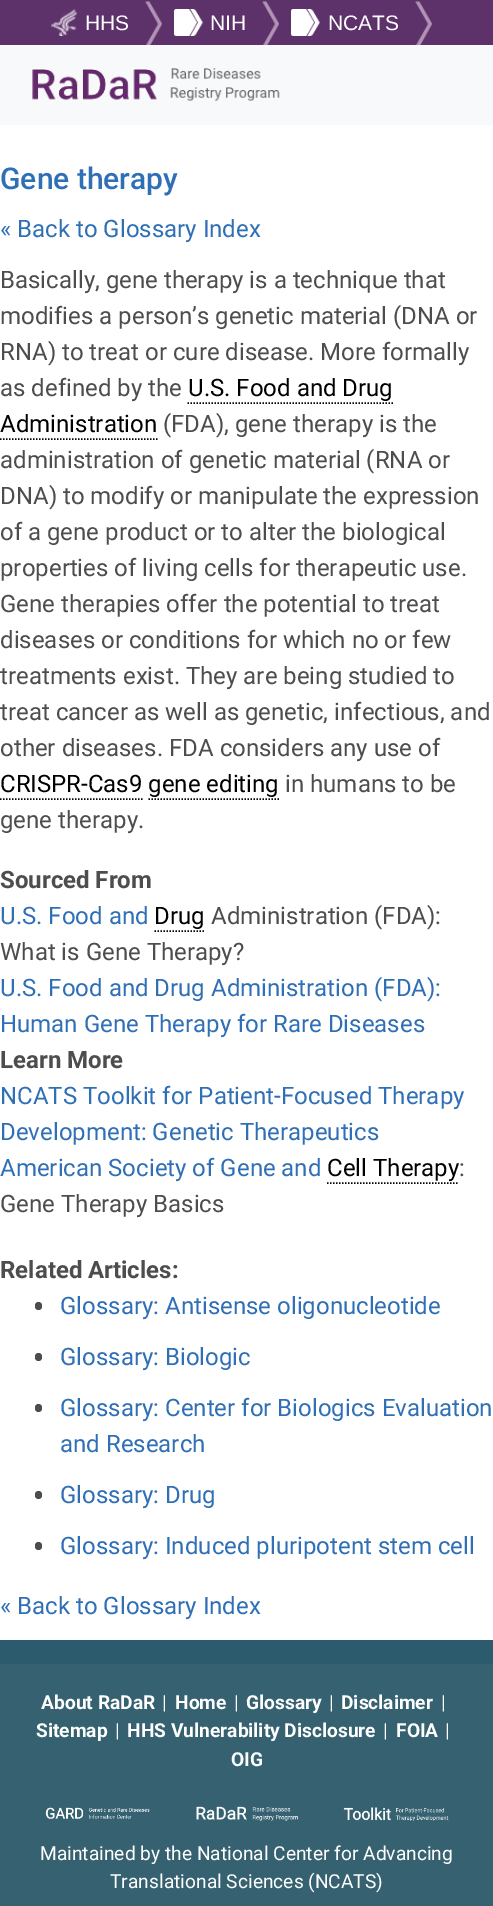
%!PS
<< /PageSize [493 1906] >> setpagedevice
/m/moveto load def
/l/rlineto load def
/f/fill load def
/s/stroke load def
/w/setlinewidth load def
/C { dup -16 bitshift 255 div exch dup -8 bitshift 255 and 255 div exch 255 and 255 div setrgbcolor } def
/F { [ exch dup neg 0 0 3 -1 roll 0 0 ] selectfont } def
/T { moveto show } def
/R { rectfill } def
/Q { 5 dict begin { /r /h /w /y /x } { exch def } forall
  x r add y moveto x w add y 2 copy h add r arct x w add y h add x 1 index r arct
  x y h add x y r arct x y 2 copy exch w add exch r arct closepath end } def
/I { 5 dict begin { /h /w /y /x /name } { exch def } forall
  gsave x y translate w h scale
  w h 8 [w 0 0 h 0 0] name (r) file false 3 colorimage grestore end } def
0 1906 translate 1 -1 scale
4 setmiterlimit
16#FFFFFF C
0 0 493 1906 R
16#5D3169 C
0 0 493 45 R
(1.rgb) 51 9 26 27 I
/LiberationSans-Regular 21 F
16#FFFFFF C
(HHS) 85 30 T
(2.rgb) 145 1 17 44 I
(3.rgb) 174 9 29 27 I
(NIH) 210 30 T
(2.rgb) 262 1 17 44 I
(3.rgb) 291 9 29 27 I
(NCATS) 328 30 T
(2.rgb) 415 1 17 44 I
16#F8F9FA C
0 45 493 80 R
(4.rgb) 32 68 248 34 I
/Roboto-Medium 30 F
16#2F6FB6 C
(Gene therapy) 0 189 T
/Roboto-Regular 24 F
(« Back to Glossary Index) 0 237 T
16#4D4D4D C
(Basically, gene therapy is a technique that) 0 288 T
(modifies a person’s genetic material \(DNA or) 0 324 T
(RNA\) to treat or cure disease. More formally) 0 360 T
(as defined by the) 0 396 T
16#000000 C
(U.S. Food and Drug) 188 396 T
1.5 w
[1.5 1.5] 0 setdash
187.5 403 m 205.5 0 l s
(Administration) 0 432 T
0 439 m 157.5 0 l s
16#4D4D4D C
(\(FDA\), gene therapy is the) 163 432 T
(administration of genetic material \(RNA or) 0 468 T
(DNA\) to modify or manipulate the expression) 0 504 T
(of a gene product or to alter the biological) 0 540 T
(properties of living cells for therapeutic use.) 0 576 T
(Gene therapies offer the potential to treat) 0 612 T
(diseases or conditions for which no or few) 0 648 T
(treatments exist. They are being studied to) 0 684 T
(treat cancer as well as genetic, infectious, and) 0 720 T
(other diseases. FDA considers any use of) 0 756 T
16#000000 C
(CRISPR-Cas9 gene editing) 0 792 T
0 799 m 142.5 0 l s
16#4D4D4D C
(in humans to be) 285 792 T
16#000000 C
148.5 799 m 130.5 0 l s
16#4D4D4D C
(gene therapy.) 0 828 T
/Roboto-Bold 24 F
(Sourced From) 0 888 T
/Roboto-Regular 24 F
16#2F6FB6 C
(U.S. Food and) 0 924 T
16#000000 C
(Drug) 154 924 T
154.5 931 m 51 0 l s
16#4D4D4D C
(Administration \(FDA\):) 211 924 T
(What is Gene Therapy?) 0 960 T
16#2F6FB6 C
(U.S. Food and Drug Administration \(FDA\):) 0 996 T
(Human Gene Therapy for Rare Diseases) 0 1032 T
/Roboto-Bold 24 F
16#4D4D4D C
(Learn More) 0 1068 T
/Roboto-Regular 24 F
16#2F6FB6 C
(NCATS Toolkit for Patient-Focused Therapy) 0 1104 T
(Development: Genetic Therapeutics) 0 1140 T
(American Society of Gene and) 0 1176 T
16#000000 C
(Cell Therapy) 327 1176 T
327 1183 m 132 0 l s
16#4D4D4D C
(:) 459 1176 T
(Gene Therapy Basics) 0 1212 T
/Roboto-Bold 24 F
(Related Articles:) 0 1278 T
35 1302 7 8 3.5 Q f
/Roboto-Regular 24 F
16#2F6FB6 C
(Glossary: Antisense oligonucleotide) 60 1314 T
16#4D4D4D C
35 1353 7 8 3.5 Q f
16#2F6FB6 C
(Glossary: Biologic) 60 1365 T
16#4D4D4D C
35 1404 7 8 3.5 Q f
16#2F6FB6 C
(Glossary: Center for Biologics Evaluation) 60 1416 T
(and Research) 60 1452 T
16#4D4D4D C
35 1491 7 8 3.5 Q f
16#2F6FB6 C
(Glossary: Drug) 60 1503 T
16#4D4D4D C
35 1542 7 8 3.5 Q f
16#2F6FB6 C
(Glossary: Induced pluripotent stem cell) 60 1554 T
(« Back to Glossary Index) 0 1614 T
16#2B5B6C C
0 1640 493 24 R
16#356171 C
0 1664 493 242 R
/Roboto-Bold 19.2 F
16#FFFFFF C
(About RaDaR) 41 1709 T
/Roboto-Regular 19.2 F
(|) 162 1709 T
/Roboto-Bold 19.2 F
(Home) 175 1709 T
/Roboto-Regular 19.2 F
(|) 234 1709 T
/Roboto-Bold 19.2 F
(Glossary) 246 1709 T
/Roboto-Regular 19.2 F
(|) 329 1709 T
/Roboto-Bold 19.2 F
(Disclaimer) 341 1709 T
/Roboto-Regular 19.2 F
(|) 441 1709 T
/Roboto-Bold 19.2 F
(Sitemap) 36 1737 T
/Roboto-Regular 19.2 F
(|) 115 1737 T
/Roboto-Bold 19.2 F
(HHS Vulnerability Disclosure) 127 1737 T
/Roboto-Regular 19.2 F
(|) 383 1737 T
/Roboto-Bold 19.2 F
(FOIA) 396 1737 T
/Roboto-Regular 19.2 F
(|) 445 1737 T
/Roboto-Bold 19.2 F
(OIG) 231 1766 T
(5.rgb) 45 1807 105 12 I
(6.rgb) 196 1806 102 15 I
(7.rgb) 343 1807 106 14 I
/Roboto-Regular 19.2 F
(Maintained by the National Center for Advancing) 40 1860 T
(Translational Sciences \(NCATS\)) 110 1888 T
showpage
